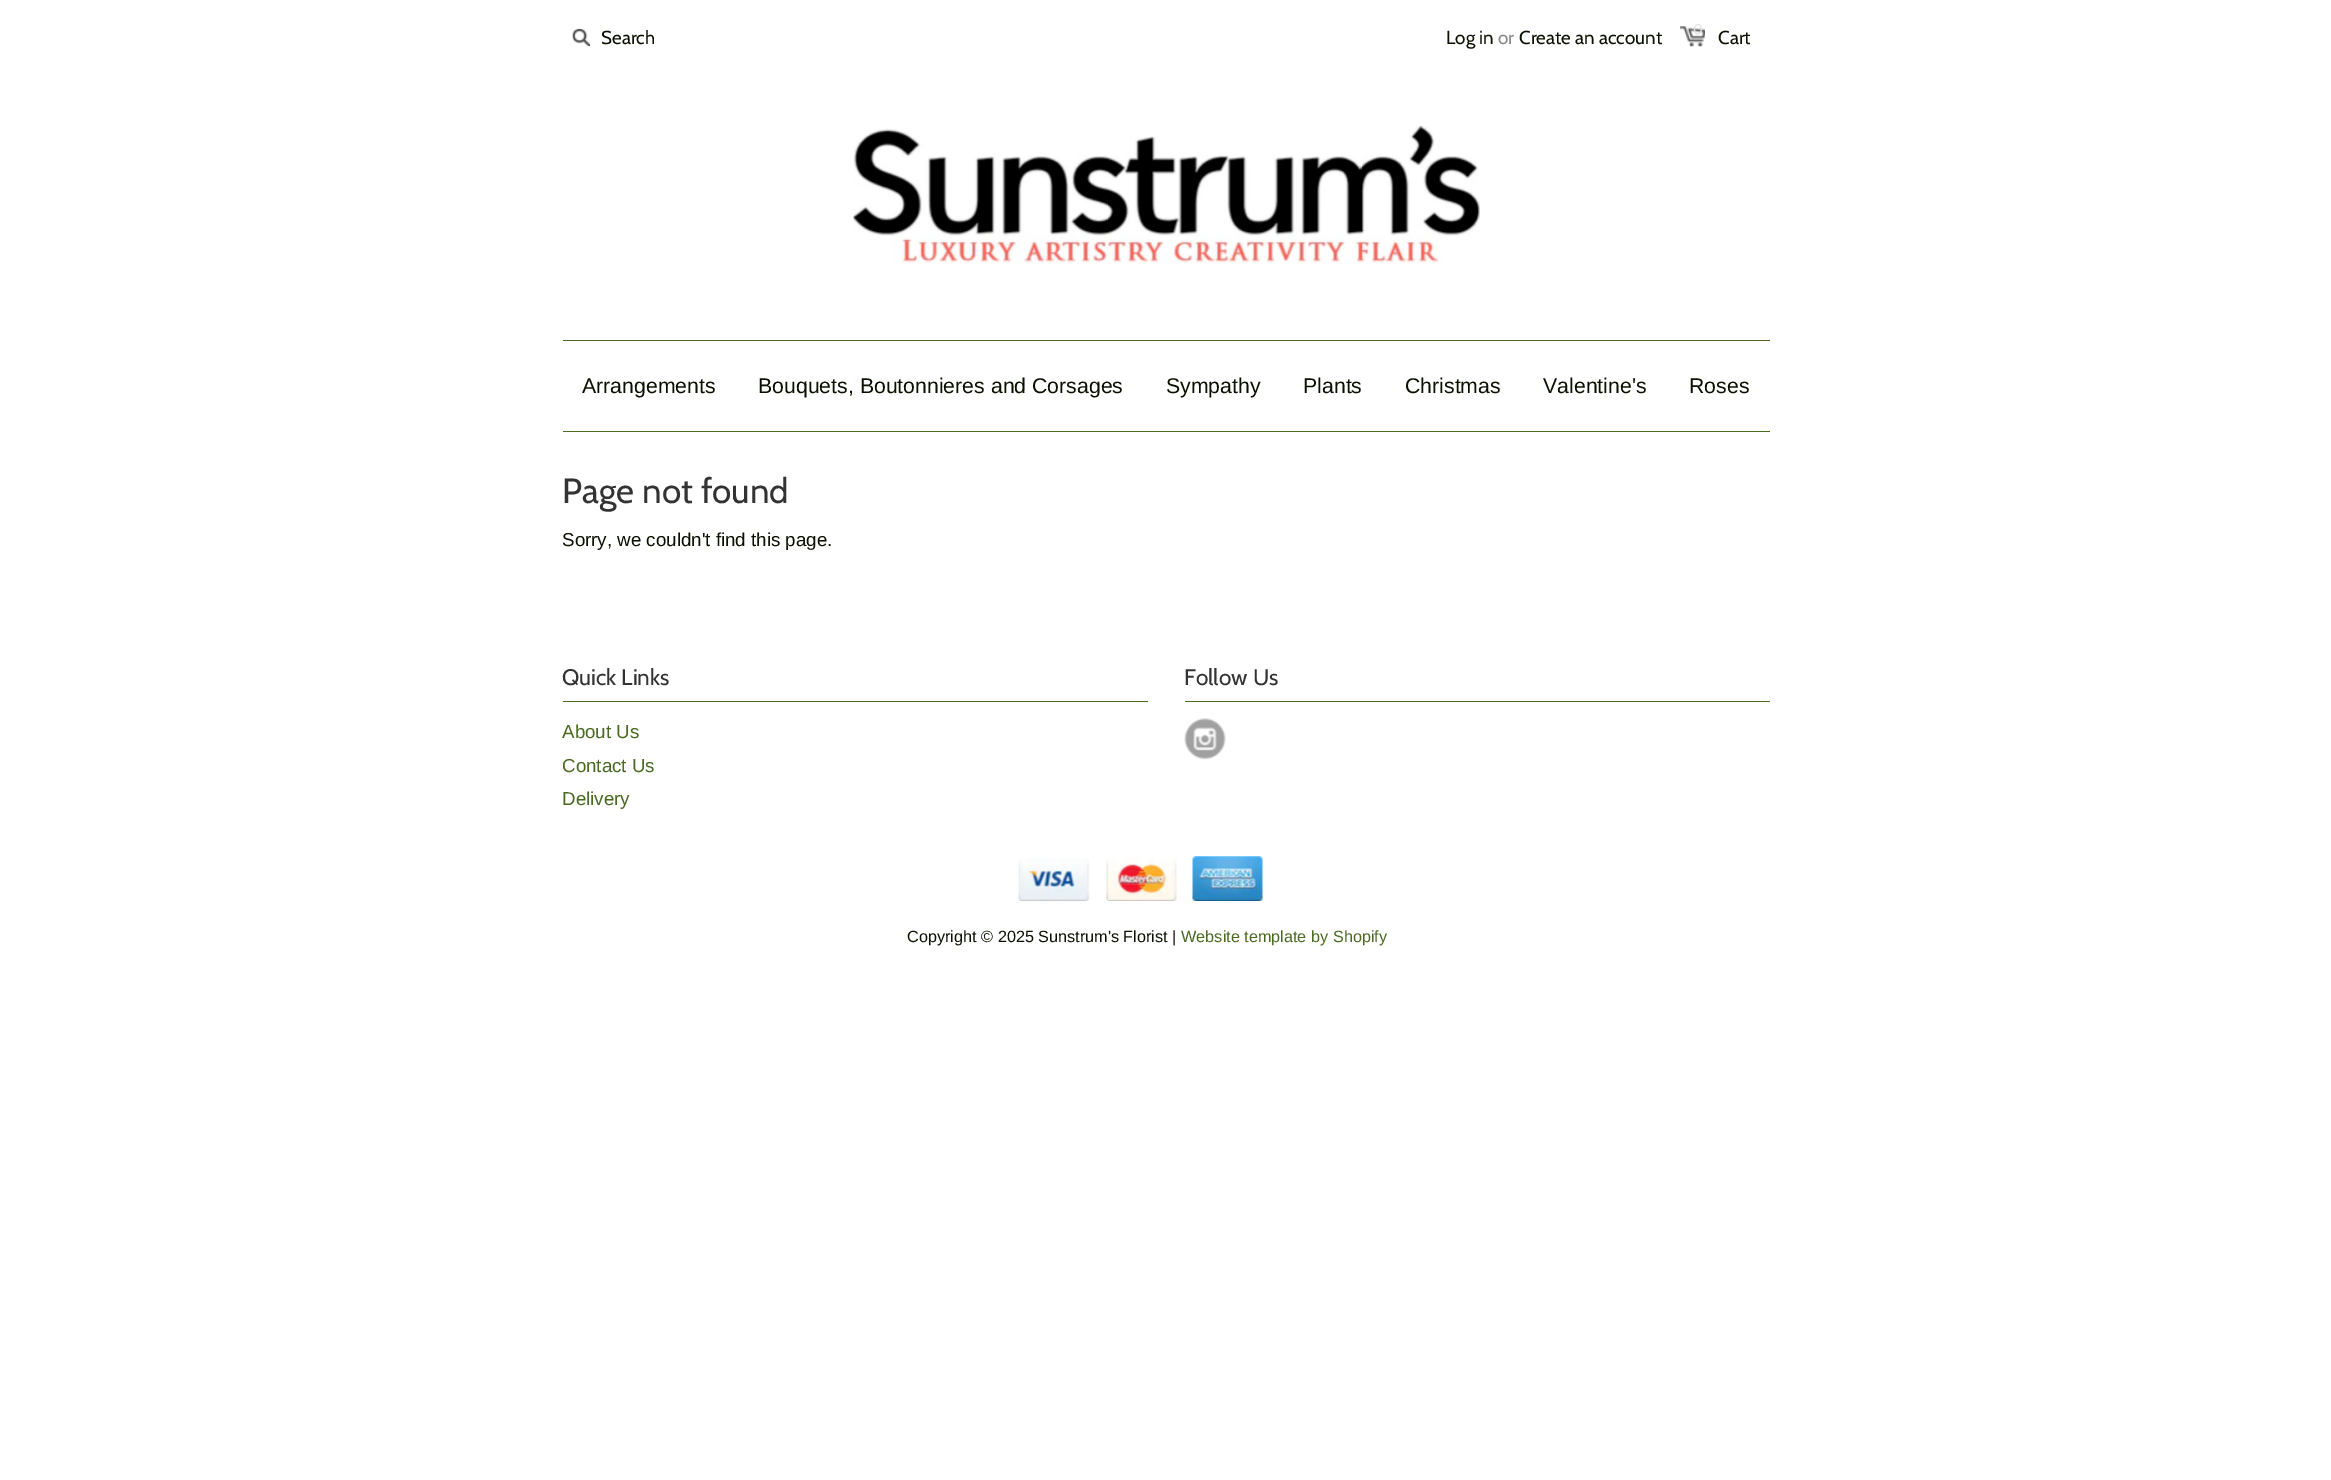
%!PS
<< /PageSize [2331 1480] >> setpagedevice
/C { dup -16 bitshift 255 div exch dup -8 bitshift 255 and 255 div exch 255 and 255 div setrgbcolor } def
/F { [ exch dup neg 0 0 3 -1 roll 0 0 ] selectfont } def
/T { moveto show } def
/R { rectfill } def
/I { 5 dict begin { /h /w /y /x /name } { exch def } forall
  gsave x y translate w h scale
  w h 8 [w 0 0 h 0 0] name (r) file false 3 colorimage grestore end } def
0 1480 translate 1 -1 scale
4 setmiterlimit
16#FFFFFF C
0 0 2331 1480 R
(1.rgb) 572 28 18 19 I
/Cabin-Regular 18.75 F
16#0A1101 C
(Search) 601 44 T
(Log in) 1446 44 T
16#888888 C
(or) 1498 44 T
16#0A1101 C
(Create an account) 1519 44 T
(2.rgb) 1680 26 25 21 I
/Cabin-Regular 14 F
16#E0E0E0 C
(0) 1693 34 T
/Cabin-Regular 18.75 F
16#0A1101 C
(Cart) 1718 44 T
(3.rgb) 853 126 627 139 I
16#4A6A21 C
563 340 1207 1 R
563 431 1207 1 R
/LiberationSans-Regular 21.25 F
16#0A1101 C
(Arrangements) 582 393 T
(Bouquets, Boutonnieres and Corsages) 758 393 T
(Sympathy) 1166 393 T
(Plants) 1303 393 T
(Christmas) 1405 393 T
(Valentine's) 1543 393 T
(Roses) 1689 393 T
/Cabin-Regular 35 F
16#333333 C
(Page not found) 562 503 T
/LiberationSans-Regular 18.75 F
16#0A1101 C
(Sorry, we couldn't find this page.) 562 546 T
16#4A6A21 C
563 701 585 1 R
/Cabin-Regular 22.5 F
16#333333 C
(Quick Links) 562 685 T
/LiberationSans-Regular 18.75 F
16#4A6A21 C
(About Us) 562 738 T
(Contact Us) 562 772 T
(Delivery) 562 805 T
1185 701 585 1 R
/Cabin-Regular 22.5 F
16#333333 C
(Follow Us) 1184 685 T
(4.rgb) 1184 718 42 42 I
(5.rgb) 1018 858 72 43 I
(6.rgb) 1105 857 72 44 I
(7.rgb) 1192 856 71 45 I
/LiberationSans-Regular 16.25 F
16#0A1101 C
(Copyright © 2025 Sunstrum's Florist |) 907 942 T
16#4A6A21 C
(Website template by Shopify) 1181 942 T
showpage
